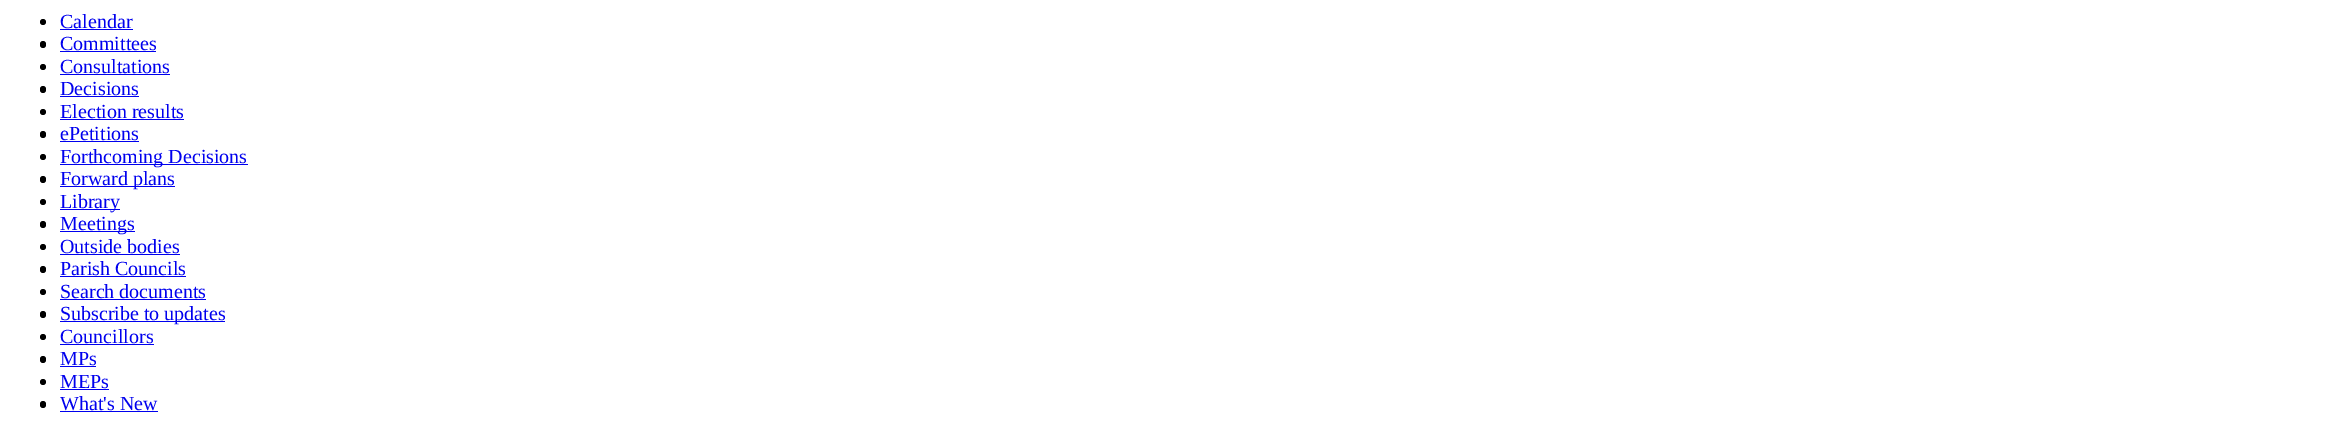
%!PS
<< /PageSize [2338 423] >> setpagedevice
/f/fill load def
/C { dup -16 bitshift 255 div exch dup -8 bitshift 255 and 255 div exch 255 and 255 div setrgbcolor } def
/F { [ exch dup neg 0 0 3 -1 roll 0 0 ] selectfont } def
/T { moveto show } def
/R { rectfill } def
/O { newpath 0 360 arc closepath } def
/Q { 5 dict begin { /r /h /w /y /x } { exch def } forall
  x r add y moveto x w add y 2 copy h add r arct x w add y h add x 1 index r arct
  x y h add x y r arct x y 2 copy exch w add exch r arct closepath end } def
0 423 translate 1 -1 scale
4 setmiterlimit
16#FFFFFF C
0 0 2338 423 R
16#000000 C
43 22 3 O f
/LiberationSerif-Regular 20 F
16#0000EE C
(Calendar) 60 28 T
60 29 73 1 R
16#000000 C
40 41 6 7 3 Q f
16#0000EE C
(Committees) 60 50 T
60 51 96 1 R
16#000000 C
43 67 3 O f
16#0000EE C
(Consultations) 60 73 T
60 74 110 1 R
16#000000 C
40 86 6 7 3 Q f
16#0000EE C
(Decisions) 60 95 T
60 96 79 1 R
16#000000 C
43 112 3 O f
16#0000EE C
(Election results) 60 118 T
60 119 124 1 R
16#000000 C
40 131 6 7 3 Q f
16#0000EE C
(ePetitions) 60 140 T
60 141 79 1 R
16#000000 C
43 157 3 O f
16#0000EE C
60 164 188 1 R
(Forthcoming Decisions) 60 163 T
16#000000 C
40 176 6 7 3 Q f
16#0000EE C
60 186 115 1 R
(Forward plans) 60 185 T
16#000000 C
43 202 3 O f
16#0000EE C
60 209 60 1 R
(Library) 60 208 T
16#000000 C
40 221 6 7 3 Q f
16#0000EE C
60 231 75 1 R
(Meetings) 60 230 T
16#000000 C
43 247 3 O f
16#0000EE C
(Outside bodies) 60 253 T
60 254 120 1 R
16#000000 C
40 266 6 7 3 Q f
16#0000EE C
(Parish Councils) 60 275 T
60 276 126 1 R
16#000000 C
43 292 3 O f
16#0000EE C
(Search documents) 60 298 T
60 299 146 1 R
16#000000 C
40 311 6 7 3 Q f
16#0000EE C
60 321 165 1 R
(Subscribe to updates) 60 320 T
16#000000 C
43 337 3 O f
16#0000EE C
(Councillors) 60 343 T
60 344 94 1 R
16#000000 C
40 356 6 7 3 Q f
16#0000EE C
(MPs) 60 365 T
60 366 36 1 R
16#000000 C
43 382 3 O f
16#0000EE C
(MEPs) 60 388 T
60 389 49 1 R
16#000000 C
40 401 6 7 3 Q f
16#0000EE C
(What's New) 60 410 T
60 411 98 1 R
showpage
